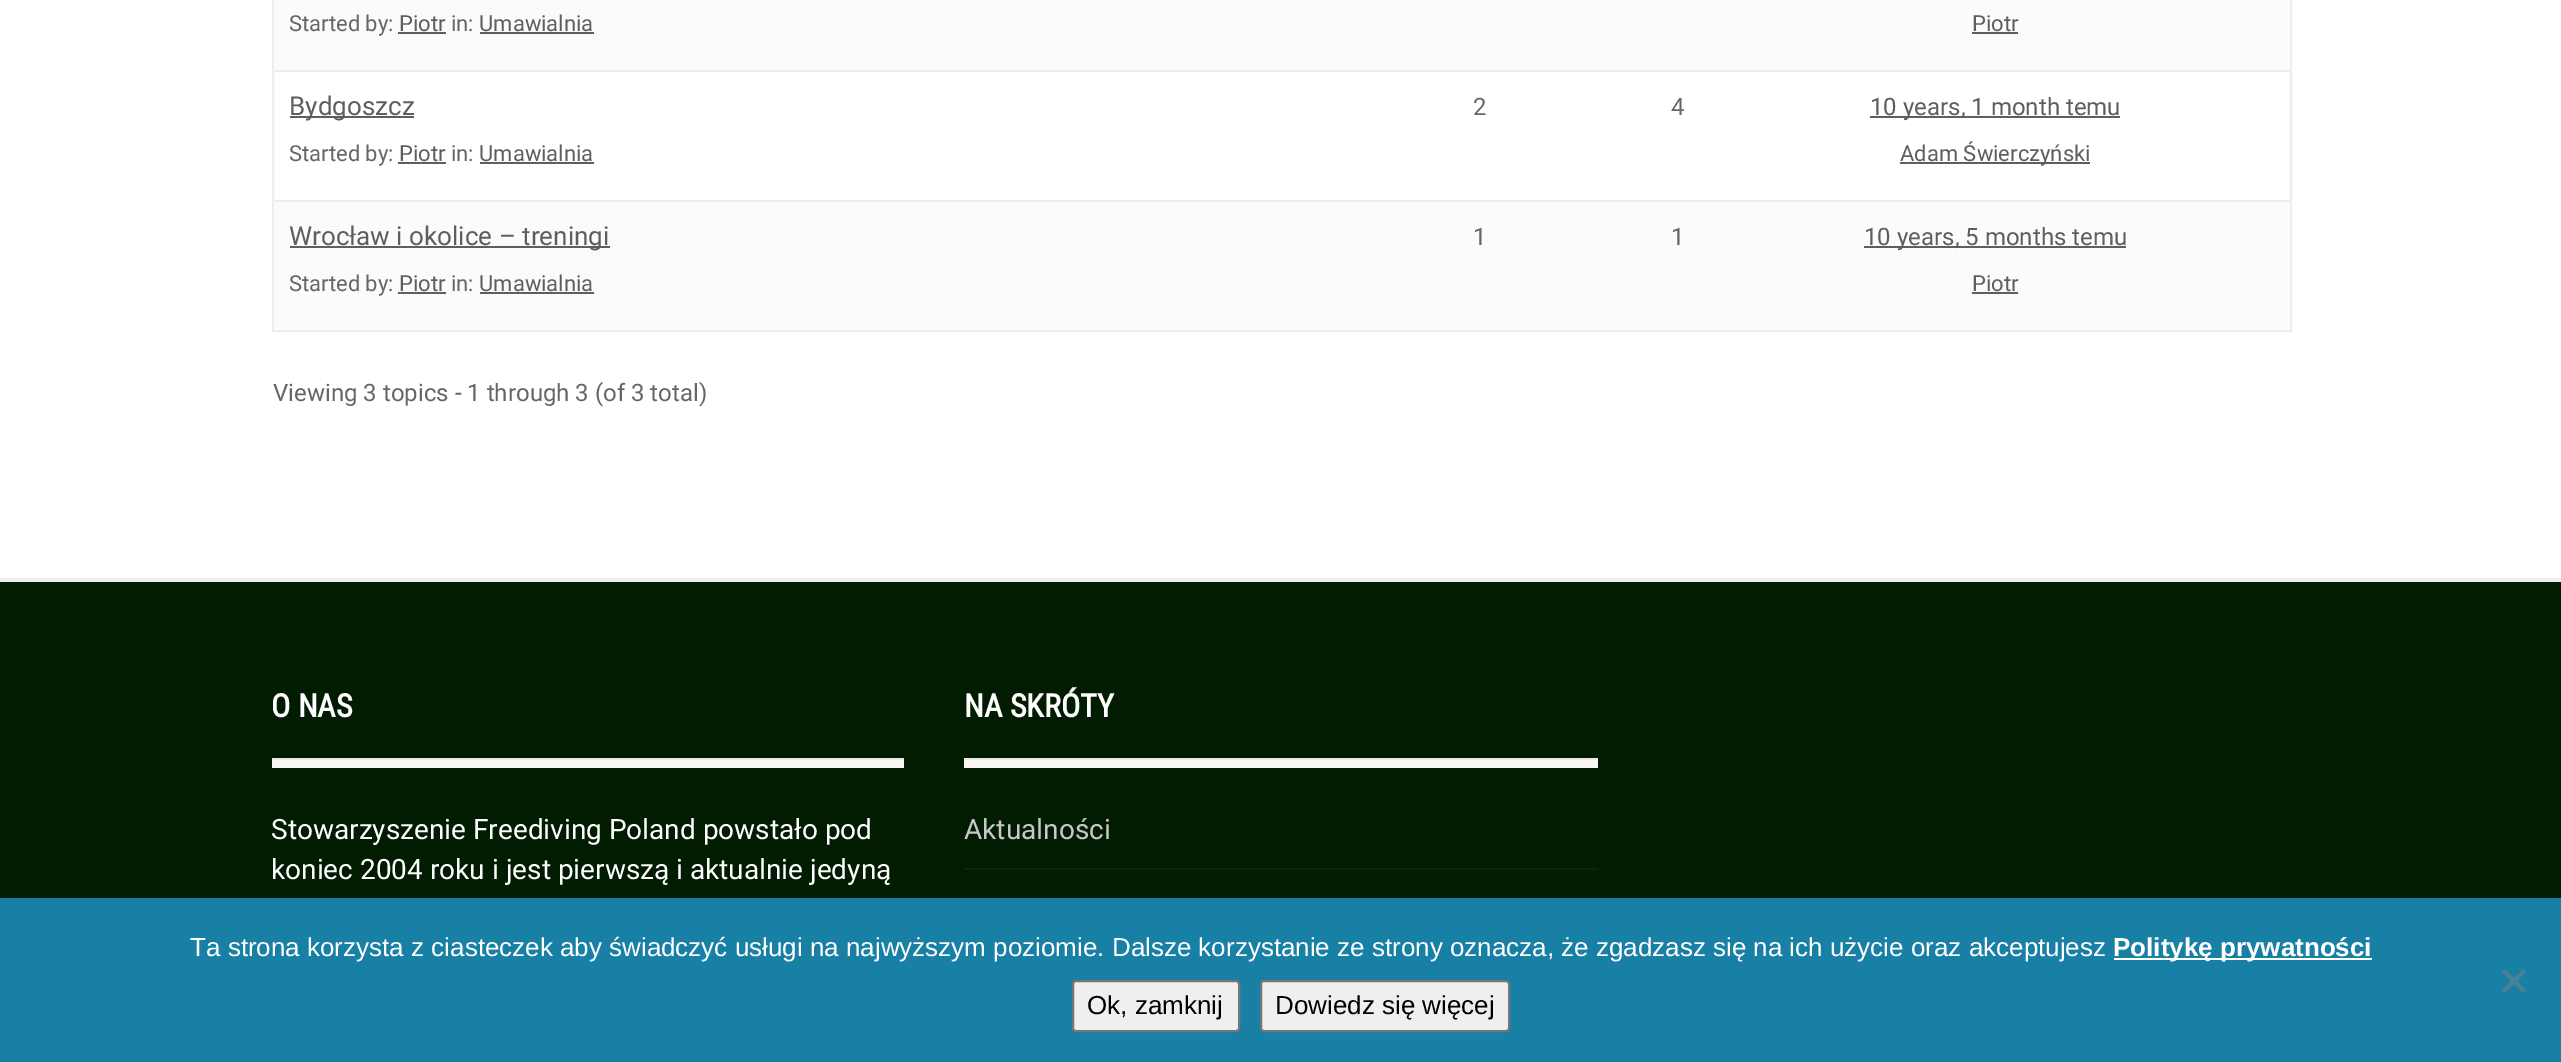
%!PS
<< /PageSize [2561 1062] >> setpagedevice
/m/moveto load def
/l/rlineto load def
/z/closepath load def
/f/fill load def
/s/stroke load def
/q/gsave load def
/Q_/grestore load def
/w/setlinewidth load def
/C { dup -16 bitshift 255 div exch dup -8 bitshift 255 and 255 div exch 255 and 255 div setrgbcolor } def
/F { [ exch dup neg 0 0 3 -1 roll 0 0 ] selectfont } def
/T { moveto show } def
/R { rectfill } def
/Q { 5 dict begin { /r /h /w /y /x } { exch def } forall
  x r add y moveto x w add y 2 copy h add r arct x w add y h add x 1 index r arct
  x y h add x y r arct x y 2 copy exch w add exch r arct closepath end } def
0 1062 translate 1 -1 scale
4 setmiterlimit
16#FFFFFF C
0 0 2561 1062 R
16#EEEEEE C
2 w
273 -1 2018 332 rectstroke
16#FBFBFB C
274 0 2016 70 R
/Roboto-Regular 22 F
16#666666 C
(Started by:) 289 31 T
16#5E5E5E C
(Piotr) 399 31 T
398 32 48 2 R
16#666666 C
(in:) 451 31 T
16#5E5E5E C
(Umawialnia) 479 31 T
480 32 114 2 R
(Piotr) 1972 31 T
1972 32 46 2 R
16#EEEEEE C
274 70 2016 2 R
16#5E5E5E C
290 116 124 2 R
/Roboto-Regular 26 F
(Bydgoszcz) 289 115 T
/Roboto-Regular 22 F
16#666666 C
(Started by:) 289 161 T
16#5E5E5E C
(Piotr) 399 161 T
398 162 48 2 R
16#666666 C
(in:) 451 161 T
16#5E5E5E C
(Umawialnia) 479 161 T
480 162 114 2 R
/Roboto-Regular 24 F
16#666666 C
(2) 1473 115 T
(4) 1671 115 T
16#5E5E5E C
1870 116 250 2 R
(10 years, 1 month temu) 1870 115 T
1900 162 190 2 R
/Roboto-Regular 22 F
(Adam Świerczyński) 1900 161 T
16#FBFBFB C
274 202 2016 128 R
16#EEEEEE C
274 200 2016 2 R
16#5E5E5E C
290 246 320 2 R
/Roboto-Regular 26 F
(Wrocław i okolice – treningi) 289 245 T
/Roboto-Regular 22 F
16#666666 C
(Started by:) 289 291 T
16#5E5E5E C
(Piotr) 399 291 T
398 292 48 2 R
16#666666 C
(in:) 451 291 T
16#5E5E5E C
(Umawialnia) 479 291 T
480 292 114 2 R
/Roboto-Regular 24 F
16#666666 C
(1) 1473 245 T
(1) 1671 245 T
16#5E5E5E C
1864 246 262 2 R
(10 years, 5 months temu) 1864 245 T
/Roboto-Regular 22 F
(Piotr) 1972 291 T
1972 292 46 2 R
/Roboto-Regular 24 F
16#666666 C
(Viewing 3 topics - 1 through 3 \(of 3 total\)) 273 401 T
16#EDEDED C
0 578 2561 4 R
16#011C01 C
0 582 2561 316 R
16#F8F7F3 C
272 760 632 8 R
/RobotoCondensed-Bold 32 F
16#FFFFFF C
(O NAS) 271 717 T
16#ECEAE4 C
272 758 632 2 R
/Roboto-Regular 28 F
16#FFFFFF C
(Stowarzyszenie Freediving Poland powstało pod) 271 839 T
(koniec 2004 roku i jest pierwszą i aktualnie jedyną) 271 879 T
16#F8F7F3 C
964 760 634 8 R
/RobotoCondensed-Bold 32 F
16#FFFFFF C
(NA SKRÓTY) 964 717 T
16#ECEAE4 C
964 758 634 2 R
16#092809 C
964 868 634 2 R
/Roboto-Regular 28 F
16#C8C8C8 C
(Aktualności) 964 839 T
16#1880A5 C
0 898 2561 164 R
/LiberationSans-Regular 26 F
16#FFFFFF C
(Ta strona korzysta z ciasteczek aby świadczyć usługi na najwyższym poziomie. Dalsze korzystanie ze strony oznacza, że zgadzasz się na ich użycie oraz akceptujesz) 190 956 T
2114 958 258 2 R
/LiberationSans-Bold 26 F
(Politykę prywatności) 2113 956 T
16#4C8093 C
2523 969 m 3 3 l -21 21 l -3 -3 l z f
2502 972 m 3 -3 l 21 21 l -3 3 l z f
16#EFEFEF C
1073 981 166 50 3 Q q f Q_
16#767676 C
s
/LiberationSans-Regular 26 F
16#000000 C
(Ok, zamknij) 1087 1014 T
16#EFEFEF C
1261 981 248 50 3 Q q f Q_
16#767676 C
s
16#000000 C
(Dowiedz się więcej) 1275 1014 T
showpage
